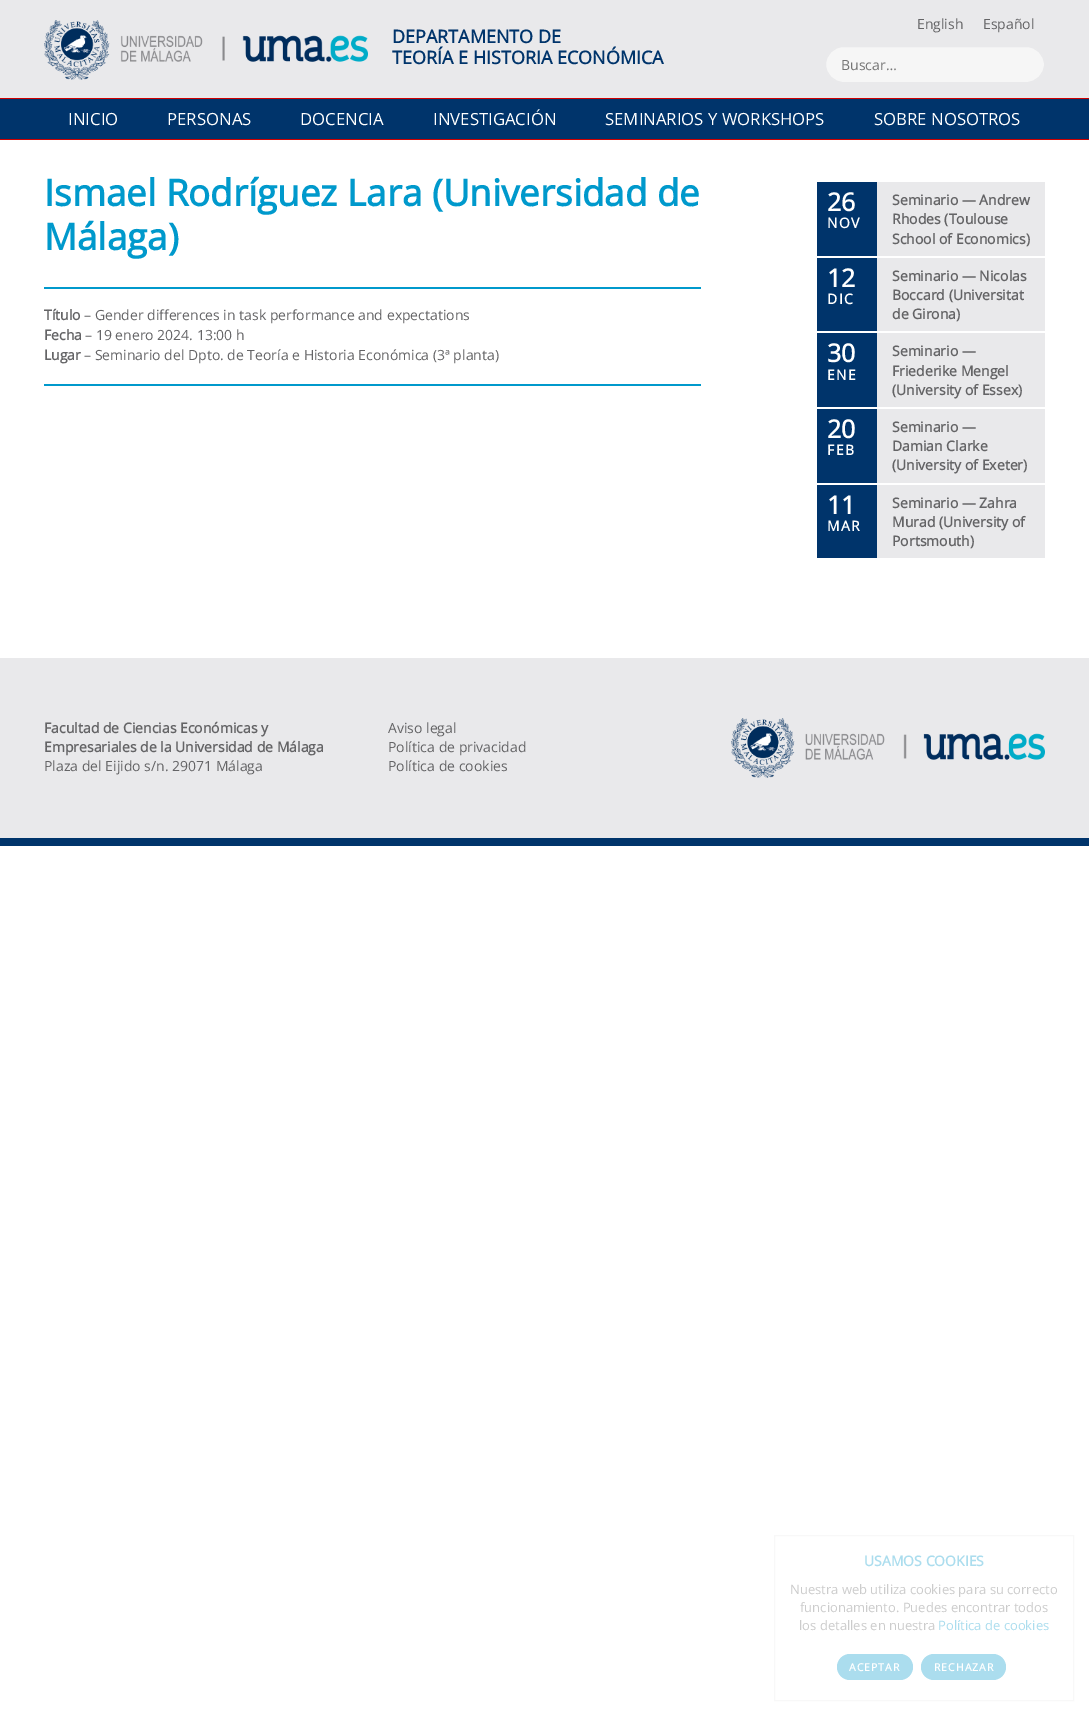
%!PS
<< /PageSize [1089 1716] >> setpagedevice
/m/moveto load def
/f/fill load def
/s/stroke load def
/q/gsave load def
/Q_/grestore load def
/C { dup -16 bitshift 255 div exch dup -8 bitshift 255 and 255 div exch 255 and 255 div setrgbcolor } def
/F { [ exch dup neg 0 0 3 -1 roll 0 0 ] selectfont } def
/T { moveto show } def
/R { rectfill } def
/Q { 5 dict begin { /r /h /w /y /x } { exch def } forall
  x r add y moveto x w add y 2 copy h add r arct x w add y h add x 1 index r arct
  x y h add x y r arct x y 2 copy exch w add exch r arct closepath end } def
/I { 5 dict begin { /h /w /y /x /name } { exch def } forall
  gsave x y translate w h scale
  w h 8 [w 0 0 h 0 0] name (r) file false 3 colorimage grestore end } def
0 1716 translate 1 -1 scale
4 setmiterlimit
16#FFFFFF C
0 0 1089 1716 R
16#E9E9EB C
0 0 1089 98 R
(1.rgb) 44 20 324 60 I
/OpenSans-Bold 18 F
16#00346B C
(DEPARTAMENTO DE) 392 43 T
(TEORÍA E HISTORIA ECONÓMICA) 392 64 T
/OpenSans-Regular 14 F
16#646466 C
(English) 917 29 T
(Español) 983 29 T
16#F6F6F6 C
825.5 46.5 219 36 18 Q q f Q_
16#E9E9EB C
s
16#757575 C
(Buscar…) 841 70 T
16#00346B C
0 99 1089 40 R
16#CC0000 C
0 98 1089 1 R
0 139 1089 1 R
/OpenSans-Regular 16.75 F
16#FFFFFF C
(INICIO) 68 125 T
(PERSONAS) 167 125 T
(DOCENCIA) 300 125 T
(INVESTIGACIÓN) 433 125 T
(SEMINARIOS Y WORKSHOPS) 605 125 T
(SOBRE NOSOTROS) 874 125 T
16#0099CC C
44 287 657 2 R
/OpenSans-Bold 36.75 F
(Ismael Rodríguez Lara \(Universidad de) 44 206 T
(Málaga\)) 44 250 T
/OpenSans-Bold 14 F
16#646466 C
(Título) 44 320 T
/OpenSans-Regular 14 F
(– Gender differences in task performance and expectations) 84 320 T
/OpenSans-Bold 14 F
(Fecha) 44 340 T
/OpenSans-Regular 14 F
(– 19 enero 2024. 13:00 h) 85 340 T
/OpenSans-Bold 14 F
(Lugar) 44 360 T
/OpenSans-Regular 14 F
(– Seminario del Dpto. de Teoría e Historia Económica \(3ª planta\)) 84 360 T
16#0099CC C
44 384 657 2 R
16#00346B C
817 182 60 74 R
/OpenSans-Bold 25 F
16#FFFFFF C
(26) 827 211 T
/OpenSans-Bold 14 F
827 228 m 1.5 0 (NOV) ashow
16#E9E9EB C
877 182 168 74 R
16#646466 C
(Seminario — Andrew) 892 205 T
(Rhodes \(Toulouse) 892 224 T
(School of Economics\)) 892 244 T
16#00346B C
817 258 60 73 R
/OpenSans-Bold 25 F
16#FFFFFF C
(12) 827 287 T
/OpenSans-Bold 14 F
827 304 m 1.5 0 (DIC) ashow
16#E9E9EB C
877 258 168 73 R
16#646466 C
(Seminario — Nicolas) 892 281 T
(Boccard \(Universitat) 892 300 T
(de Girona\)) 892 319 T
16#00346B C
817 333 60 74 R
/OpenSans-Bold 25 F
16#FFFFFF C
(30) 827 362 T
/OpenSans-Bold 14 F
827 380 m 1.5 0 (ENE) ashow
16#E9E9EB C
877 333 168 74 R
16#646466 C
(Seminario —) 892 356 T
(Friederike Mengel) 892 376 T
(\(University of Essex\)) 892 395 T
16#00346B C
817 409 60 74 R
/OpenSans-Bold 25 F
16#FFFFFF C
(20) 827 438 T
/OpenSans-Bold 14 F
827 455 m 1.5 0 (FEB) ashow
16#E9E9EB C
877 409 168 74 R
16#646466 C
(Seminario —) 892 432 T
(Damian Clarke) 892 451 T
(\(University of Exeter\)) 892 470 T
16#00346B C
817 485 60 73 R
/OpenSans-Bold 25 F
16#FFFFFF C
(11) 827 514 T
/OpenSans-Bold 14 F
827 531 m 1.5 0 (MAR) ashow
16#E9E9EB C
877 485 168 73 R
16#646466 C
(Seminario — Zahra) 892 508 T
(Murad \(University of) 892 527 T
(Portsmouth\)) 892 546 T
16#E9E9EB C
0 658 1089 180 R
16#00346B C
0 838 1089 8 R
16#646466 C
(Facultad de Ciencias Económicas y) 44 733 T
(Empresariales de la Universidad de Málaga) 44 752 T
/OpenSans-Regular 14 F
(Plaza del Eijido s/n. 29071 Málaga) 44 771 T
(Aviso legal) 388 733 T
(Política de privacidad) 388 752 T
(Política de cookies) 388 771 T
(2.rgb) 731 718 314 60 I
16#F8F8F8 C
774.5 1535.5 299 165 rectstroke
/OpenSans-Bold 14 F
16#ABDDEE C
(USAMOS COOKIES) 864 1566 T
/OpenSans-Regular 13 F
16#CCCCCC C
(Nuestra web utiliza cookies para su correcto) 790 1594 T
(funcionamiento. Puedes encontrar todos) 800 1612 T
(los detalles en nuestra) 799 1630 T
16#ABDDEE C
(Política de cookies) 938 1630 T
837 1654 76 26 13 Q f
/OpenSans-Bold 10.5 F
16#FFFFFF C
849 1671 m 1 0 (ACEPTAR) ashow
16#ABDDEE C
921 1654 85 26 13 Q f
16#FFFFFF C
934 1671 m 1 0 (RECHAZAR) ashow
showpage
